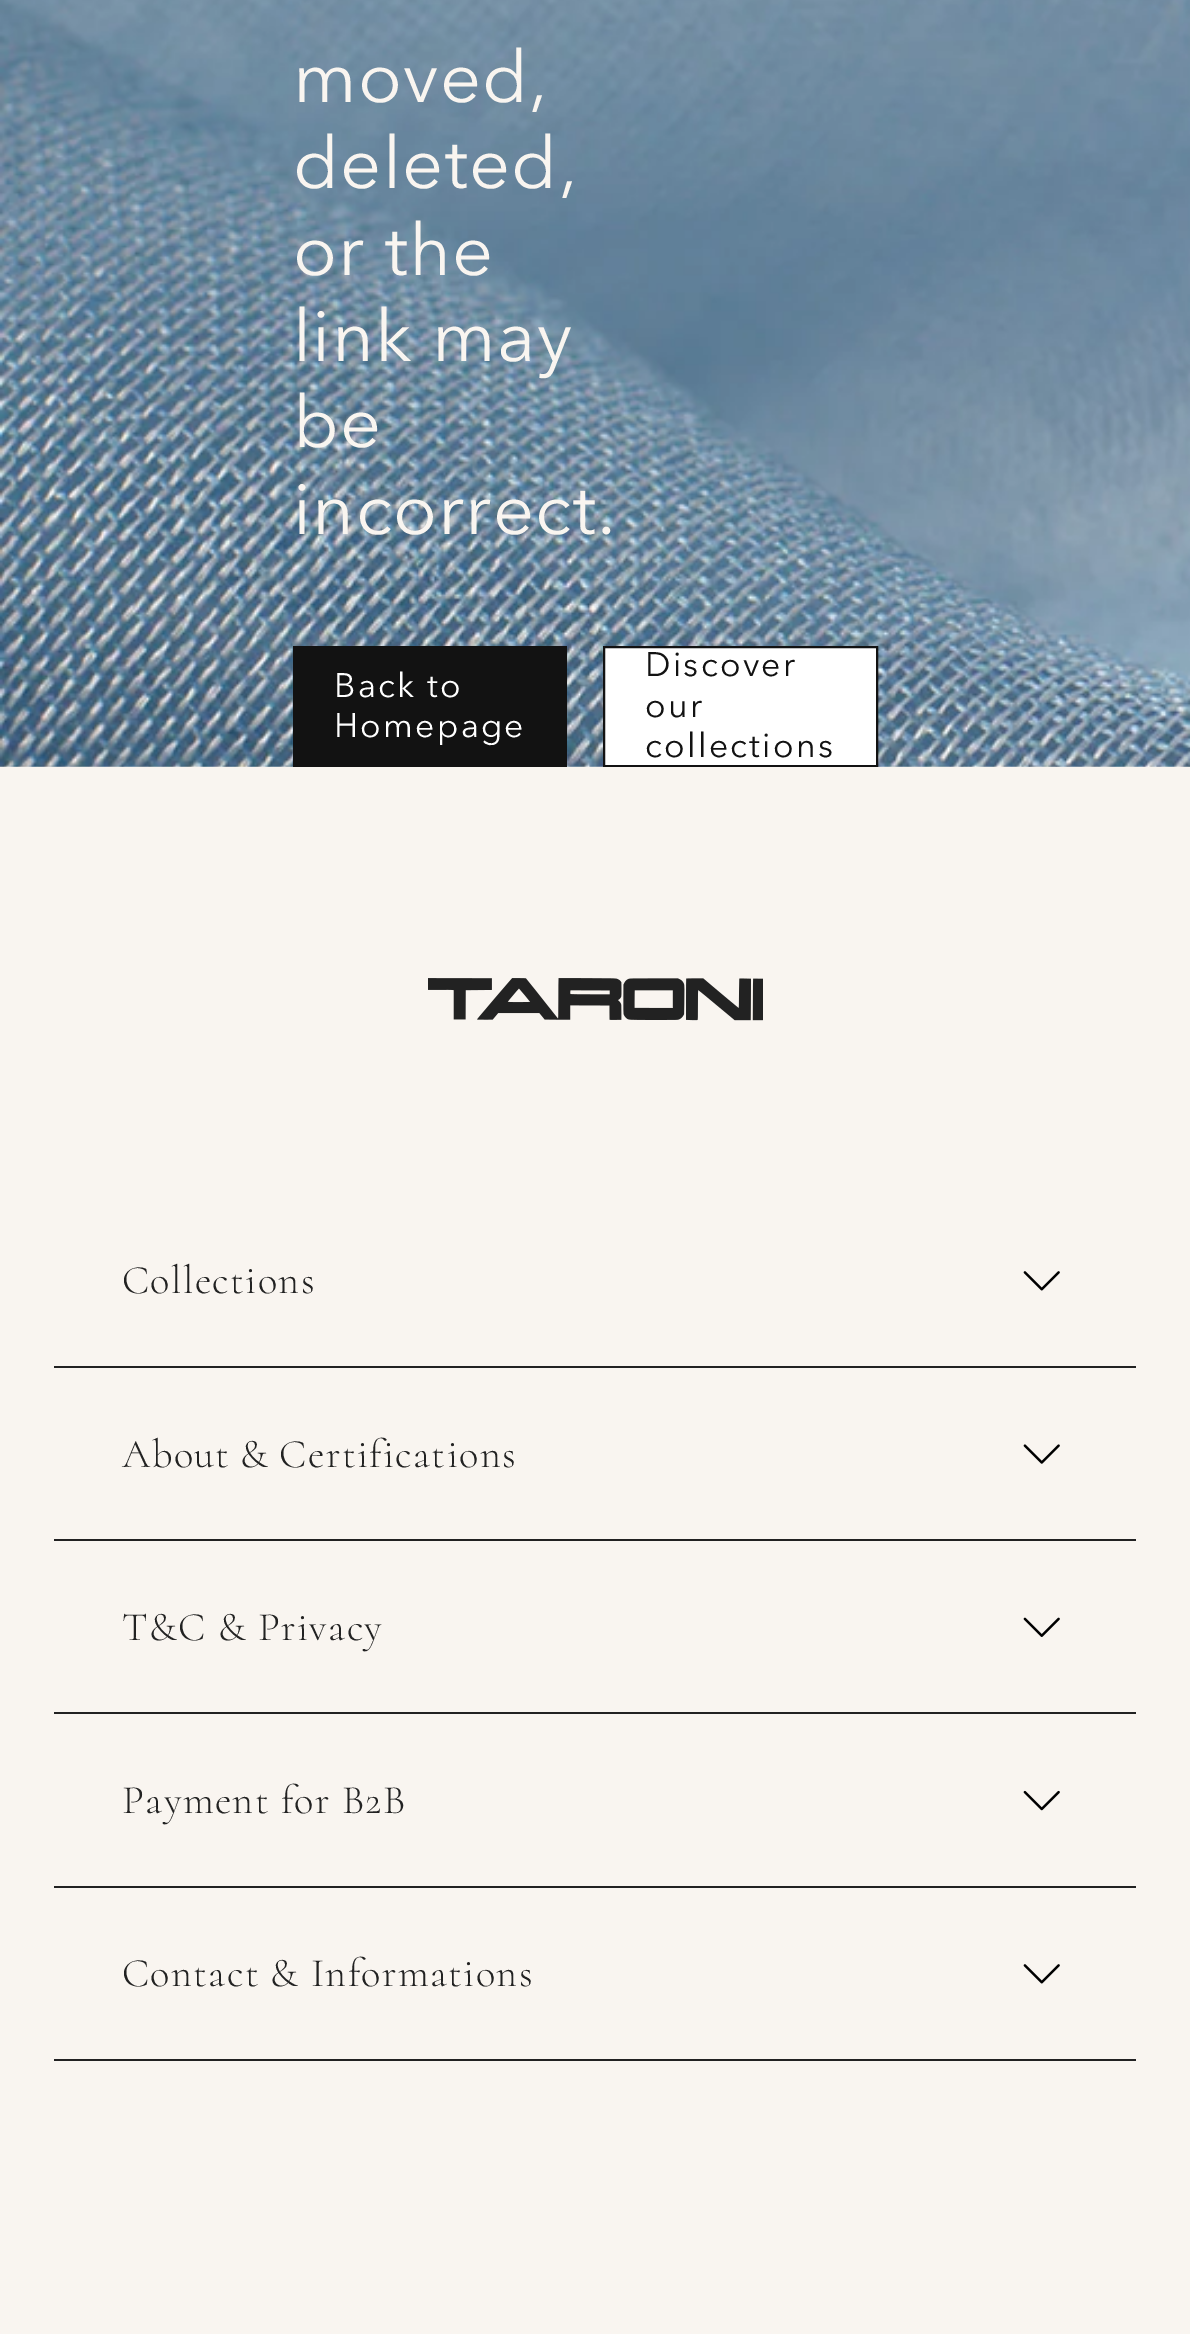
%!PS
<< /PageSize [1190 2334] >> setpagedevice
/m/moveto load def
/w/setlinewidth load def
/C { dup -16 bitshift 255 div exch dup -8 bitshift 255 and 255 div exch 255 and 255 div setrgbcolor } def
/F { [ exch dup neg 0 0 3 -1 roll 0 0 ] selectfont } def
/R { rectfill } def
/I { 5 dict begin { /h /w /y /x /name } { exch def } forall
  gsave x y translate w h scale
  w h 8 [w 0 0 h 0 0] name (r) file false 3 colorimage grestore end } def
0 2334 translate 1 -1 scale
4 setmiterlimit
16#FFFFFF C
0 0 1190 2334 R
(1.rgb) 0 0 1190 767 I
/AvenirNext-Regular 72 F
16#F9F5F0 C
293 102 m 1.35 0 (moved,) ashow
293 188 m 1.35 0 (deleted,) ashow
293 275 m 1.35 0 (or the) ashow
293 361 m 1.35 0 (link may) ashow
293 447 m 1.35 0 (be) ashow
293 534 m 1.35 0 (incorrect.) ashow
16#121212 C
293 646 274 121 R
/AvenirNext-Regular 33.75 F
16#FFFFFF C
334 697 m 2.25 0 (Back to) ashow
334 737 m 2.25 0 (Homepage) ashow
605 648 271 117 R
16#121212 C
2 w
604 647 273 119 rectstroke
645 676 m 2.25 0 (Discover) ashow
645 717 m 2.25 0 (our) ashow
645 757 m 2.25 0 (collections) ashow
16#F9F5F0 C
0 767 1190 1567 R
(2.rgb) 428 978 335 43 I
16#222222 C
54 1366 1082 2 R
/Cormorant-Light 40.5 F
122 1293 m 1.35 0 (Collections) ashow
(3.rgb) 1023 1271 37 20 I
54 1539 1082 2 R
122 1467 m -1 0 32 1.35 0 (About & Certifications) awidthshow
(4.rgb) 1023 1444 37 20 I
54 1712 1082 2 R
122 1640 m 1.35 0 (T&C & Privacy) ashow
(5.rgb) 1023 1617 37 20 I
54 1886 1082 2 R
122 1813 m 1.35 0 (Payment for B2B) ashow
(6.rgb) 1023 1790 37 21 I
54 2059 1082 2 R
122 1986 m 1.35 0 (Contact & Informations) ashow
(3.rgb) 1023 1964 37 20 I
showpage
